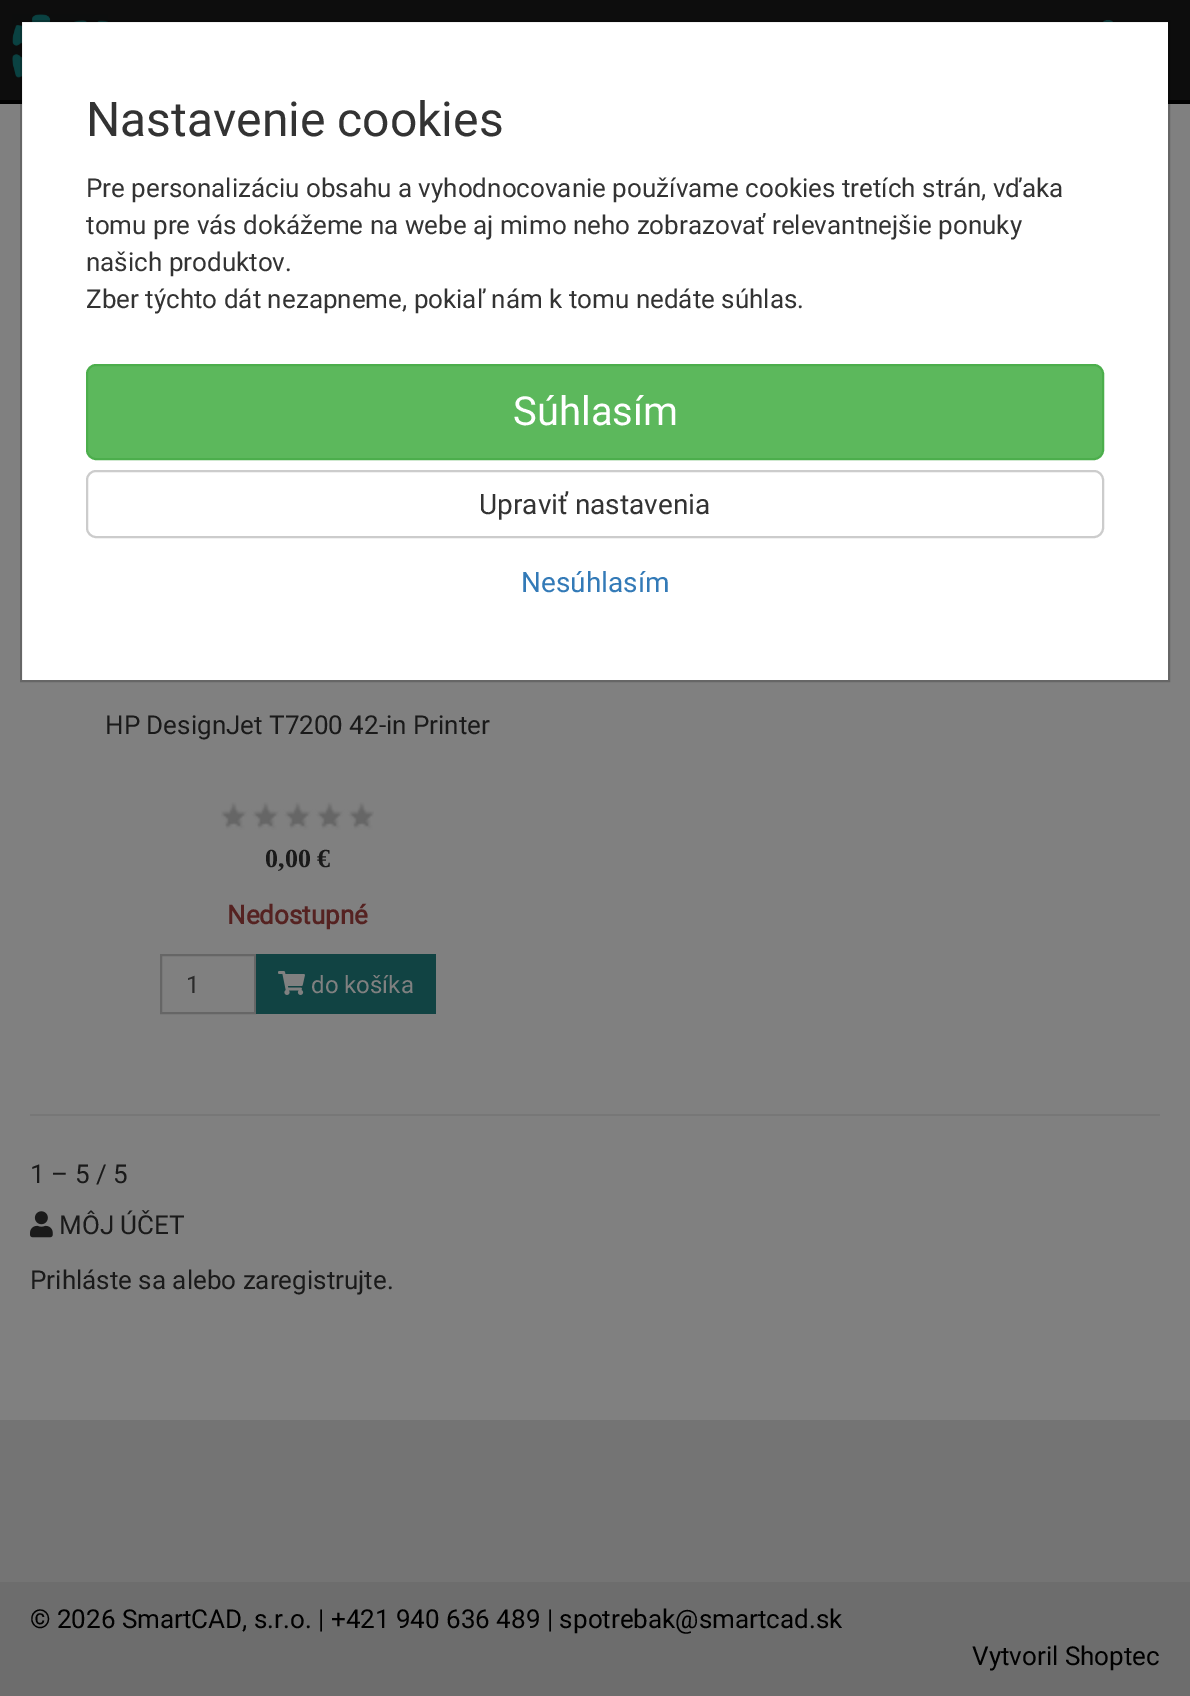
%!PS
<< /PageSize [1190 1696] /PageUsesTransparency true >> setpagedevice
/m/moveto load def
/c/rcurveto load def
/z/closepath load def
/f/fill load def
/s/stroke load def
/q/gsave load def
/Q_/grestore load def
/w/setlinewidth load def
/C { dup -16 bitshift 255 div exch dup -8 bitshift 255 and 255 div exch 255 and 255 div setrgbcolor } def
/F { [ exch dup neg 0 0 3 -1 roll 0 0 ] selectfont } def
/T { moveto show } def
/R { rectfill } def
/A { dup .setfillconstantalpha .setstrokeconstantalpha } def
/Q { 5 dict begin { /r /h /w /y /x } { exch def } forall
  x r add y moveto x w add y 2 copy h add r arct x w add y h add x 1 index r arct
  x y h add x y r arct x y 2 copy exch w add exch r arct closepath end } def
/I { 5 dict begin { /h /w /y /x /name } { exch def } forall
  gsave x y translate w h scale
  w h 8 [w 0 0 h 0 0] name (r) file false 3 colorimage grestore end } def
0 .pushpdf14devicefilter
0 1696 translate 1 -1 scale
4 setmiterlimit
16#808080 C
0 0 1190 1696 R
16#000000 C
0 100 1190 4 R
16#0D0D0D C
0 0 1190 100 R
(1.rgb) 12 14 96 64 I
16#114343 C
1108 20 m 5.5 0 10 6.5 10 14 c 0 7.5 -4.5 14 -10 14 c -5.5 0 -10 -6.5 -10 -14 c 0 -7.5 4.5 -14 10 -14 c z f
16#FFFFFF C
22 22 1146 658 R
0.2 A
16#000000 C
2 w
21 21 1148 660 rectstroke
/Roboto-Regular 48 F
1 A
16#333333 C
(Nastavenie cookies) 86 136 T
/Roboto-Regular 26 F
(Pre personalizáciu obsahu a vyhodnocovanie používame cookies tretích strán, vďaka) 86 197 T
(tomu pre vás dokážeme na webe aj mimo neho zobrazovať relevantnejšie ponuky) 86 234 T
(našich produktov.) 86 271 T
(Zber týchto dát nezapneme, pokiaľ nám k tomu nedáte súhlas.) 86 308 T
16#5CB85C C
87 365 1016 94 9 Q q f Q_
16#4CAE4C C
s
/Roboto-Regular 40 F
16#FFFFFF C
(Súhlasím) 513 425 T
16#CCCCCC C
87 471 1016 66 9 Q s
/Roboto-Regular 28 F
16#333333 C
(Upraviť nastavenia) 479 514 T
16#337AB7 C
(Nesúhlasím) 521 592 T
/Roboto-Regular 26 F
16#1A1A1A C
(HP DesignJet T7200 42-in Printer) 105 734 T
(2.rgb) 221 802 153 28 I
/LiberationSerif-Bold 26 F
(0,00 €) 265 867 T
/Roboto-Bold 26 F
16#552221 C
(Nedostupné) 227 924 T
16#666666 C
161 955 94 58 rectstroke
/Roboto-Regular 24 F
16#2B2B2B C
(1) 186 993 T
16#114343 C
256 954 180 60 R
(3.rgb) 278 971 27 24 I
16#808080 C
(do košíka) 311 993 T
16#777777 C
30 1114 1130 2 R
/Roboto-Regular 26 F
16#1A1A1A C
(1 – 5 / 5) 30 1183 T
(4.rgb) 30 1211 23 27 I
(MÔJ ÚČET) 59 1234 T
(Prihláste sa alebo zaregistrujte.) 30 1289 T
16#747474 C
0 1420 1190 162 R
16#6D6D6D C
0 1582 1190 114 R
16#000000 C
(© 2026 SmartCAD, s.r.o. | +421 940 636 489 | spotrebak@smartcad.sk) 30 1628 T
(Vytvoril Shoptec) 972 1665 T
.poppdf14devicefilter showpage
